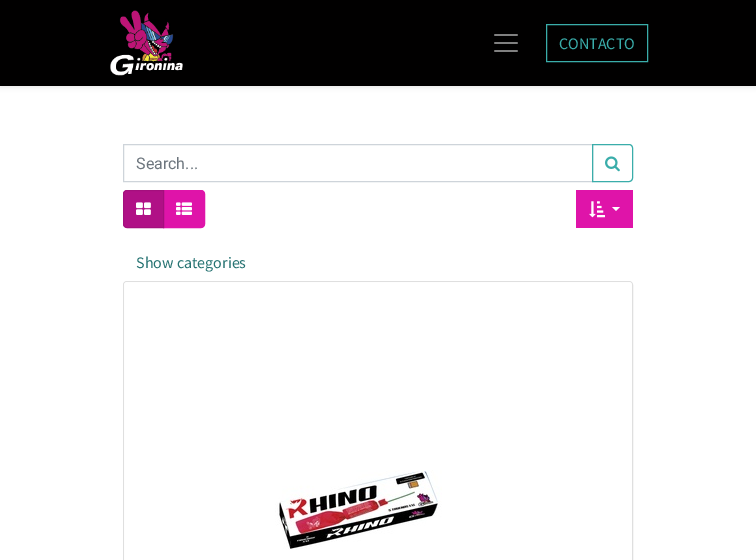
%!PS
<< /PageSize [756 560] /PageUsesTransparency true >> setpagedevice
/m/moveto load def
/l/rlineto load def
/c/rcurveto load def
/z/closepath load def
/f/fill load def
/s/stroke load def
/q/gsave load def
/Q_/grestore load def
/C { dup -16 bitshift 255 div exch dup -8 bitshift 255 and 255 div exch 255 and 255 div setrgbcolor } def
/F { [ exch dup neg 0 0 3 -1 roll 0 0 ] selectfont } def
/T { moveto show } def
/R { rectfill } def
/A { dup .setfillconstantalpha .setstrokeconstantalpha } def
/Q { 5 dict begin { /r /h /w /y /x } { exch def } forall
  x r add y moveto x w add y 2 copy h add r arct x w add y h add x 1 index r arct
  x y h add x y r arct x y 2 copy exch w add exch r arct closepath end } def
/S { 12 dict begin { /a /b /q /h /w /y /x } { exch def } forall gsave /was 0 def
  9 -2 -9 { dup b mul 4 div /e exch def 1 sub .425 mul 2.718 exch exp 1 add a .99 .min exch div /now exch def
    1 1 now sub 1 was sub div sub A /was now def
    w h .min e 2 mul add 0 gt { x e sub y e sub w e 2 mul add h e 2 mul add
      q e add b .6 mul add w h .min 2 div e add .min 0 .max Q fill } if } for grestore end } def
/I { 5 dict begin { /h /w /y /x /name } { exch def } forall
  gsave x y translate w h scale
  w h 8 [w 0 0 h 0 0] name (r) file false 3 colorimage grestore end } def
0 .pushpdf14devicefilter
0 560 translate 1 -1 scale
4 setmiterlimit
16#FFFFFF C
0 0 756 560 R
16#000000 C
0 2 756 86 0 2 .07 S
16#010000 C
0 0 756 86 R
(1.rgb) 110 10 73 66 I
(2.rgb) 494 34 24 18 I
16#3AADAA C
546.5 24.5 101 37 rectstroke
/SourceSansPro-Regular 16 F
(CONTACTO) 559 49 T
16#CED4DA C
123.5 144.5 469 37 rectstroke
/Roboto-Regular 16 F
16#6C757D C
(Search...) 136 169 T
16#3AADAA C
592.5 144.5 m 36.5 0 l 2 0 3.5 1.5 3.5 3.5 c 0 30 l 0 2 -1.5 3.5 -3.5 3.5 c -36.5 0 l z s
(3.rgb) 605 156 15 16 I
16#DF14A9 C
163.5 190.5 m 37.5 0 l 2 0 3.5 1.5 3.5 3.5 c 0 30 l 0 2 -1.5 3.5 -3.5 3.5 c -37.5 0 l z q f Q_
s
16#B01086 C
127 190.5 m 36.5 0 l 0 37 l -36.5 0 l -2 0 -3.5 -1.5 -3.5 -3.5 c 0 -30 l 0 -2 1.5 -3.5 3.5 -3.5 c z q f Q_
16#A40F7D C
s
(4.rgb) 136 202 15 13 I
(5.rgb) 176 202 16 13 I
16#DF14A9 C
576 190 57 38 R
(6.rgb) 589 201 16 17 I
16#FFFFFF C
612 207 m 8 0 l -4 4 l z f
/SourceSansPro-Regular 16 F
16#267372 C
(Show categories) 136 268 T
16#DFDFDF C
123.5 281.5 509 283 3.5 Q s
0.9 A
16#FFFFFF C
127 282 m 502 0 l 1.5 0 3 1.5 3 3 c 0 275 l -508 0 l 0 -275 l 0 -1.5 1.5 -3 3 -3 c z f
1 A
(7.rgb) 275 470 167 80 I
.poppdf14devicefilter showpage
